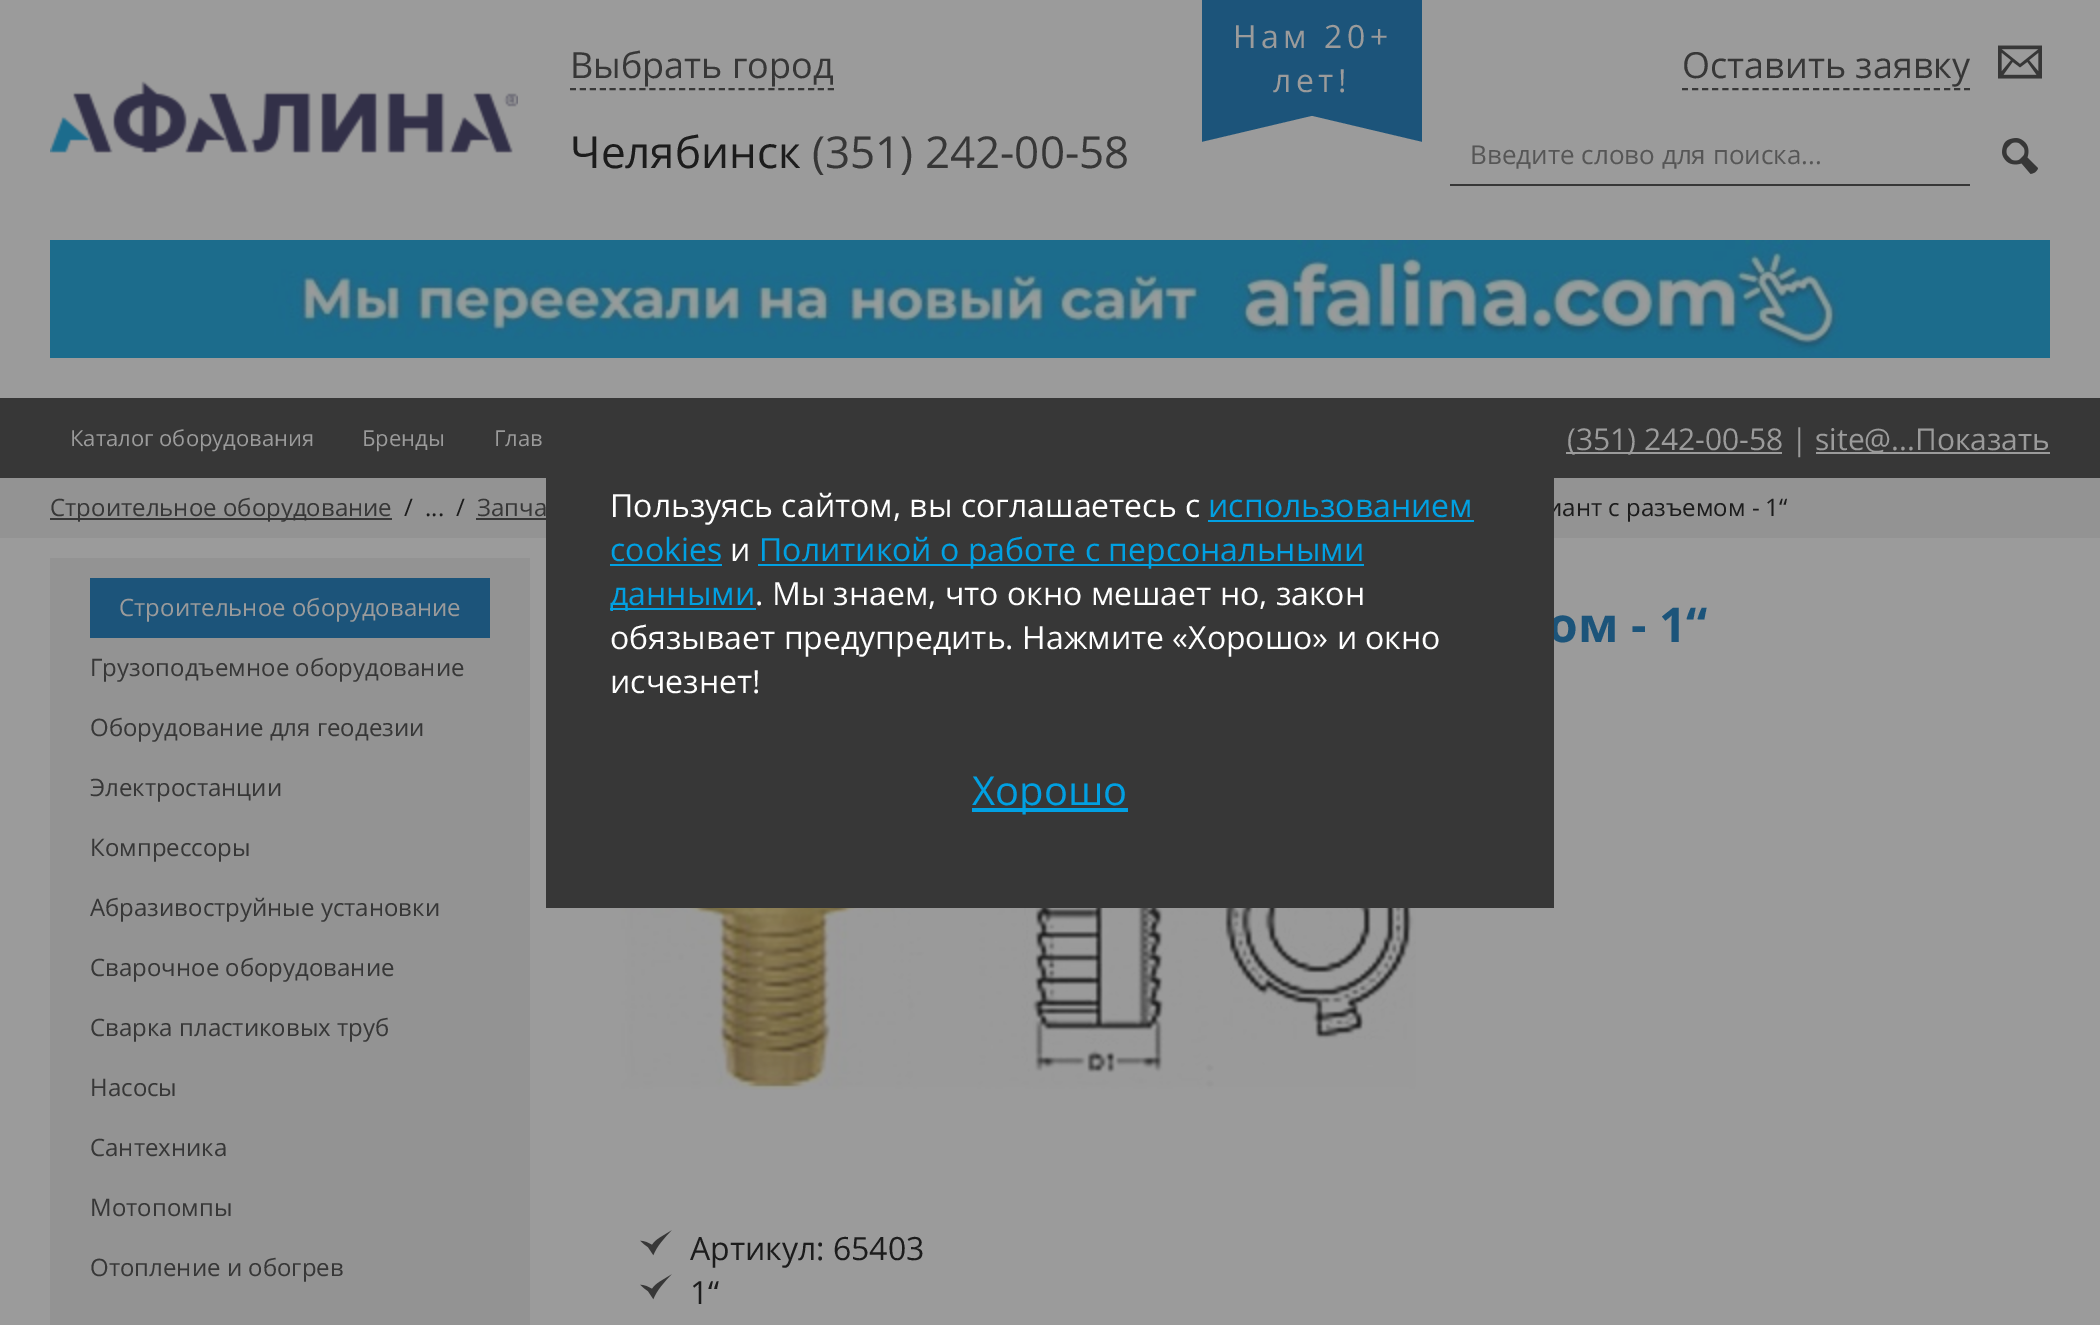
%!PS
<< /PageSize [2100 1325] >> setpagedevice
/m/moveto load def
/l/rlineto load def
/z/closepath load def
/f/fill load def
/s/stroke load def
/w/setlinewidth load def
/C { dup -16 bitshift 255 div exch dup -8 bitshift 255 and 255 div exch 255 and 255 div setrgbcolor } def
/F { [ exch dup neg 0 0 3 -1 roll 0 0 ] selectfont } def
/T { moveto show } def
/R { rectfill } def
/I { 5 dict begin { /h /w /y /x /name } { exch def } forall
  gsave x y translate w h scale
  w h 8 [w 0 0 h 0 0] name (r) file false 3 colorimage grestore end } def
0 1325 translate 1 -1 scale
4 setmiterlimit
16#9B9B9B C
0 0 2100 1325 R
16#1C547A C
1202 0 220 142 R
/OpenSans-Regular 32 F
16#9B9B9B C
1233 48 m 4.5 0 (Нам 20+) ashow
1273 92 m 4.5 0 (лет!) ashow
1422 142 m -220 0 l 110 -26 l z f
(1.rgb) 50 81 468 72 I
/OpenSans-Regular 36 F
16#373737 C
(Выбрать город) 570 78 T
2 w
[6 3.92] 0 setdash
570 89 m 264 0 l s
(Оставить заявку) 1682 78 T
[6 4.08] 0 setdash
1682 89 m 288 0 l s
(2.rgb) 1998 45 44 34 I
1450 184 520 2 R
/OpenSans-Regular 26 F
16#565656 C
(Введите слово для поиска...) 1470 164 T
(3.rgb) 2002 138 36 36 I
/OpenSans-Regular 44 F
16#1C1C1C C
(Челябинск) 570 168 T
16#373737 C
(\(351\) 242-00-58) 812 168 T
(4.rgb) 50 240 2000 118 I
0 398 2100 80 R
/OpenSans-Regular 22 F
16#9B9B9B C
(Каталог оборудования) 70 446 T
(Бренды) 362 446 T
(Глав) 494 446 T
1566 452 216 2 R
/OpenSans-Regular 30 F
(\(351\) 242-00-58 |) 1567 450 T
1816 452 234 2 R
(site@...Показать) 1815 450 T
16#939393 C
0 478 2100 60 R
/OpenSans-Regular 24 F
16#1C1C1C C
(иант с разъемом - 1“) 1547 516 T
/OpenSans-Bold 48 F
16#1C547A C
(ом - 1“) 1548 642 T
16#373737 C
546 478 1008 430 R
/OpenSans-Regular 32 F
16#FFFFFF C
(Пользуясь сайтом, вы соглашаетесь с) 610 517 T
16#01A0E2 C
(использованием) 1208 517 T
1208 520 266 2 R
(cookies) 610 561 T
610 564 112 2 R
16#FFFFFF C
(и) 730 561 T
16#01A0E2 C
758 564 606 2 R
(Политикой о работе с персональными) 759 561 T
610 608 146 2 R
(данными) 610 605 T
16#FFFFFF C
(. Мы знаем, что окно мешает но, закон) 755 605 T
(обязывает предупредить. Нажмите «Хорошо» и окно) 610 649 T
(исчезнет!) 610 693 T
16#01A0E2 C
972 808 156 4 R
/OpenSans-Regular 40 F
(Хорошо) 972 805 T
16#373737 C
50 518 342 2 R
/OpenSans-Regular 24 F
(Строительное оборудование) 50 516 T
16#1C1C1C C
(/) 404 516 T
(...) 425 516 T
(/) 456 516 T
16#373737 C
(Запча) 477 516 T
476 518 70 2 R
16#939393 C
50 558 480 767 R
16#1C547A C
90 578 400 60 R
16#9B9B9B C
(Cтроительное оборудование) 119 616 T
16#373737 C
(Грузоподъемное оборудование) 90 676 T
(Оборудование для геодезии) 90 736 T
(Электростанции) 90 796 T
(Компрессоры) 90 856 T
(Абразивоструйные установки) 90 916 T
(Сварочное оборудование) 90 976 T
(Сварка пластиковых труб) 90 1036 T
(Насосы) 90 1096 T
(Сантехника) 90 1156 T
(Мотопомпы) 90 1216 T
(Отопление и обогрев) 90 1276 T
(5.rgb) 621 908 795 182 I
(6.rgb) 640 1230 32 26 I
/OpenSans-Regular 32 F
16#1C1C1C C
(Артикул: 65403) 690 1260 T
(6.rgb) 640 1274 32 26 I
(1“) 690 1304 T
showpage
